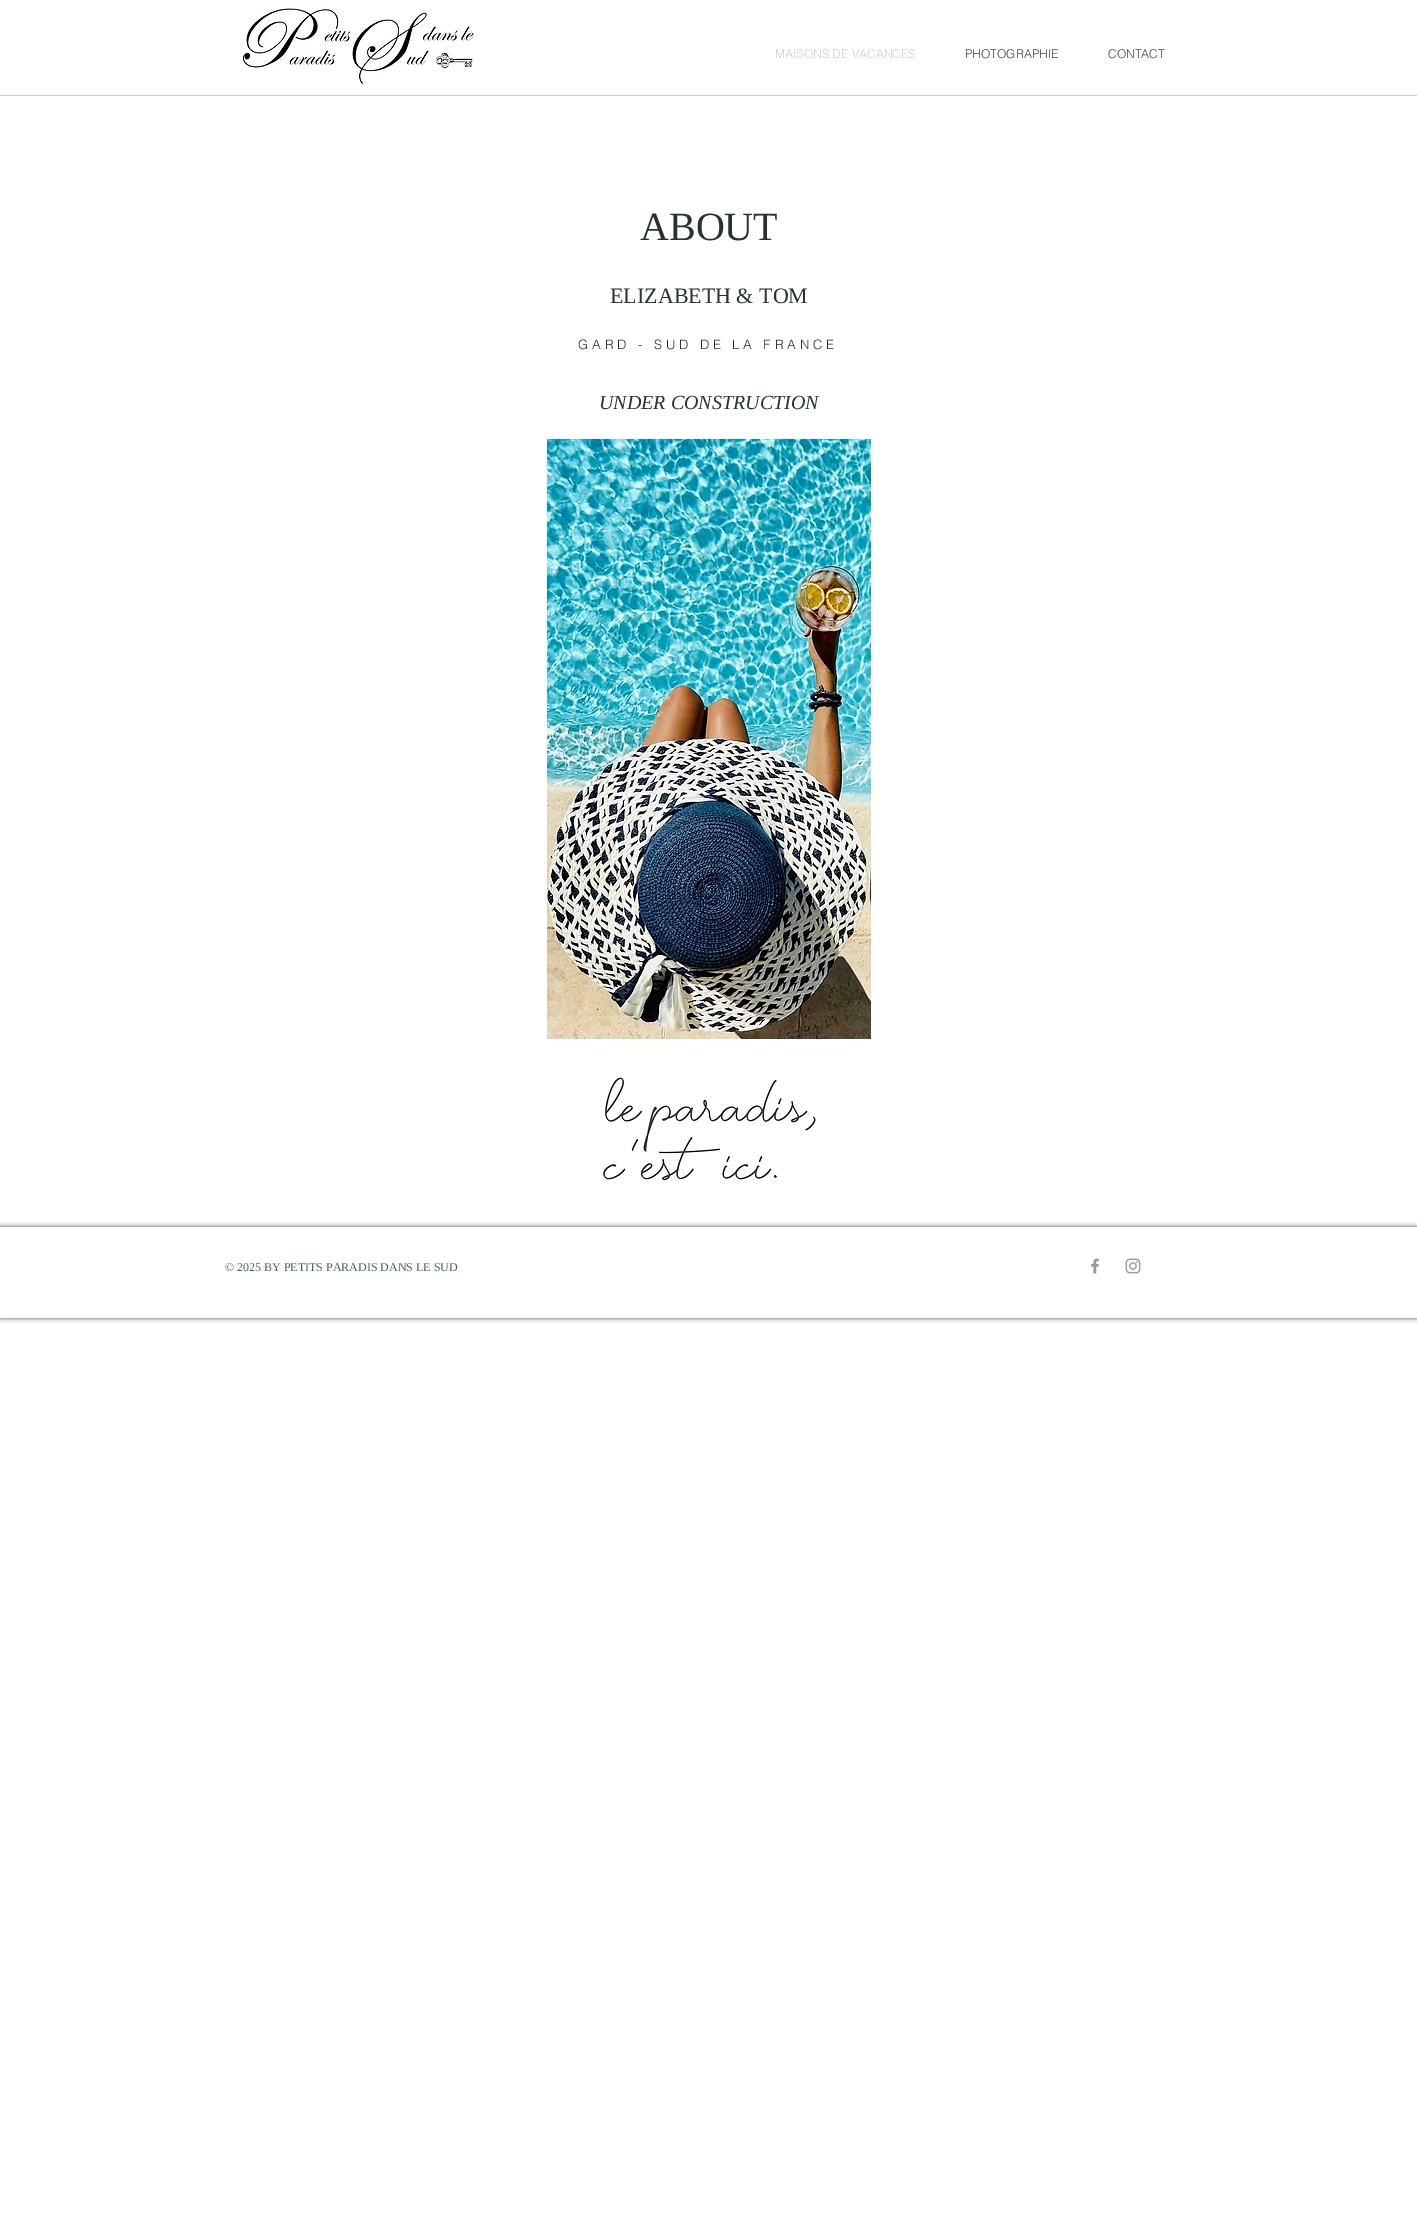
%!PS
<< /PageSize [1417 2232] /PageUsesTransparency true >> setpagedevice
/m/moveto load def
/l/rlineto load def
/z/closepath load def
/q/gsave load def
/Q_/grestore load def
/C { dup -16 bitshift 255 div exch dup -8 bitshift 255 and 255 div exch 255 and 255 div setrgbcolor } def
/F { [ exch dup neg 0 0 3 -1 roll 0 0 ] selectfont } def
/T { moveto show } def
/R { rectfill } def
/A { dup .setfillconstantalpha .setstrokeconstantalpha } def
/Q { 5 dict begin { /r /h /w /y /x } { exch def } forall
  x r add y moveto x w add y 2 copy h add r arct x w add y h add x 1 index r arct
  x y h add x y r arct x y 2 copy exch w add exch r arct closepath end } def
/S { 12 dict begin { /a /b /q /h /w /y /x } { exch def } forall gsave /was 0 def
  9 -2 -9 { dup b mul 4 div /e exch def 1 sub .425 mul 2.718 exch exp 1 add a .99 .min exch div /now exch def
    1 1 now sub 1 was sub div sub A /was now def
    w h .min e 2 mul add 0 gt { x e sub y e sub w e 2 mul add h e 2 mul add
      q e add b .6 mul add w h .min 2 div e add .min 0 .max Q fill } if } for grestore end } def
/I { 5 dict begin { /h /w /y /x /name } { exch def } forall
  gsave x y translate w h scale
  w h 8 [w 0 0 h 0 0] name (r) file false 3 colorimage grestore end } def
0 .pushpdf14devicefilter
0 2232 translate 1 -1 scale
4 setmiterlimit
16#FFFFFF C
0 0 1417 2232 R
(1.rgb) 241 7 234 77 I
/helvetica-Light 12 F
16#CCCCCC C
(MAISONS DE VACANCES) 775 58 T
16#3E3E3E C
(PHOTOGRAPHIE) 965 58 T
(CONTACT) 1108 58 T
16#CCCCCC C
0 95 1417 1 R
/LiberationSerif-Regular 40 F
16#24352C C
(ABOUT) 640 240 T
/LiberationSerif-Regular 22 F
(ELIZABETH & TOM) 610 303 T
/helvetica-Light 13 F
578 349 m 3.9 0 (GARD - SUD DE LA FRANCE) ashow
/LiberationSerif-Italic 20 F
(UNDER CONSTRUCTION) 599 409 T
(2.rgb) 547 439 324 600 I
(3.rgb) 603 1077 213 104 I
q
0 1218 m 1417 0 l 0 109 l -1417 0 l z 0 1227 m 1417 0 l 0 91 l -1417 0 l z eoclip newpath
16#000000 C
0 1227 1417 91 0 2.5 .7 S
Q_
/LiberationSerif-Regular 12 F
16#486959 C
(© 2025 BY PETITS PARADIS DANS LE SUD) 225 1271 T
(4.rgb) 1091 1258 8 16 I
(5.rgb) 1125 1258 16 16 I
.poppdf14devicefilter showpage
